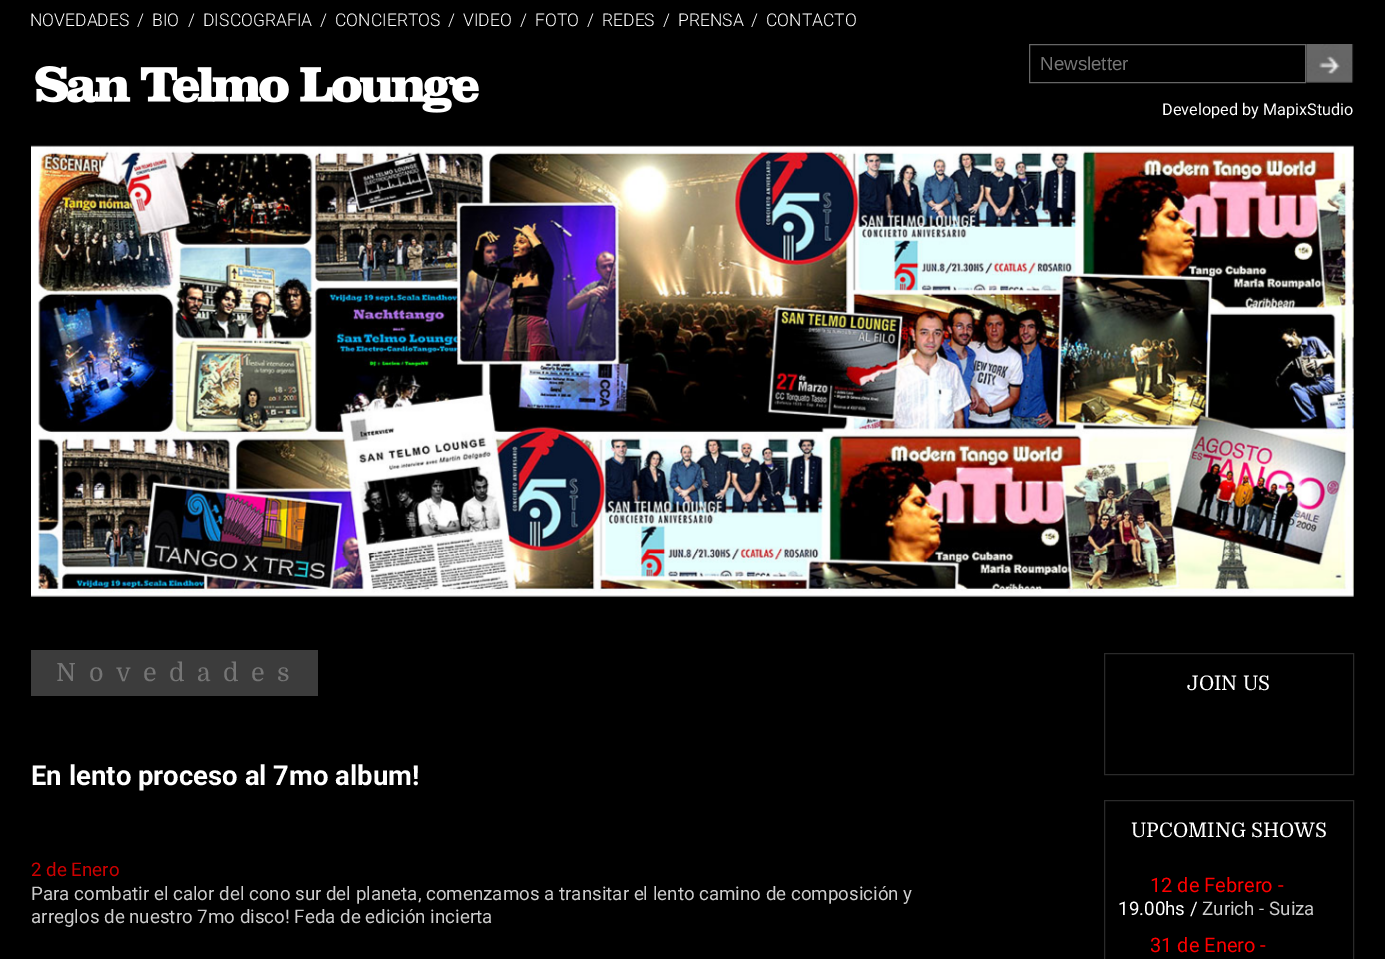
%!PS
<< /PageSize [1385 959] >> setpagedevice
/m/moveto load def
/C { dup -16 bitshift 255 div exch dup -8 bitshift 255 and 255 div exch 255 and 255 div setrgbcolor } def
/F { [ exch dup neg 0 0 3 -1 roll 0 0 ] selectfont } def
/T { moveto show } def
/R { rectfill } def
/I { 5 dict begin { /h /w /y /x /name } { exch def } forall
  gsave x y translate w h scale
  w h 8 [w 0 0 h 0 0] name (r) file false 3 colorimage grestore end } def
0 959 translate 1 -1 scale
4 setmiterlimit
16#000000 C
0 0 1385 959 R
/Roboto-Light 17.5 F
16#FFFFFF C
(NOVEDADES) 30 26 T
(/) 137 26 T
(BIO) 152 26 T
(/) 188 26 T
(DISCOGRAFIA) 203 26 T
(/) 320 26 T
(CONCIERTOS) 335 26 T
(/) 448 26 T
(VIDEO) 463 26 T
(/) 520 26 T
(FOTO) 535 26 T
(/) 587 26 T
(REDES) 602 26 T
(/) 663 26 T
(PRENSA) 678 26 T
(/) 751 26 T
(CONTACTO) 766 26 T
(1.rgb) 35 66 444 47 I
16#666666 C
1029.5 44.5 276 38 rectstroke
/LiberationSans-Regular 18.75 F
16#757575 C
(Newsletter) 1040 70 T
(2.rgb) 1306 44 48 39 I
/Roboto-Regular 16.25 F
16#FFFFFF C
(Developed by MapixStudio) 1162 115 T
(3.rgb) 31 145 1323 452 I
16#3C3C3C C
31 650 287 46 R
/Domine-Regular 25 F
16#757575 C
56 681 m 12.5 0 (Novedades) ashow
/Roboto-Bold 27.5 F
16#FFFFFF C
(En lento proceso al 7mo album!) 31 785 T
/Roboto-Regular 18.75 F
16#CC0000 C
(2 de Enero) 31 876 T
16#CCCCCC C
(Para combatir el calor del cono sur del planeta, comenzamos a transitar el lento camino de composición y) 31 900 T
(arreglos de nuestro 7mo disco! Feda de edición incierta) 31 923 T
16#2A2A2A C
1104.5 653.5 249 121 rectstroke
/Domine-Regular 20 F
16#FFFFFF C
(JOIN US) 1187 690 T
16#2A2A2A C
1104.5 800.5 249 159 rectstroke
16#FFFFFF C
(UPCOMING SHOWS) 1131 837 T
/Roboto-Regular 20 F
16#FF0000 C
(12 de Febrero -) 1150 892 T
/Roboto-Regular 18.75 F
16#FFFFFF C
(19.00hs /) 1118 915 T
16#CCCCCC C
(Zurich - Suiza) 1202 915 T
/Roboto-Regular 20 F
16#FF0000 C
(31 de Enero -) 1150 952 T
showpage
